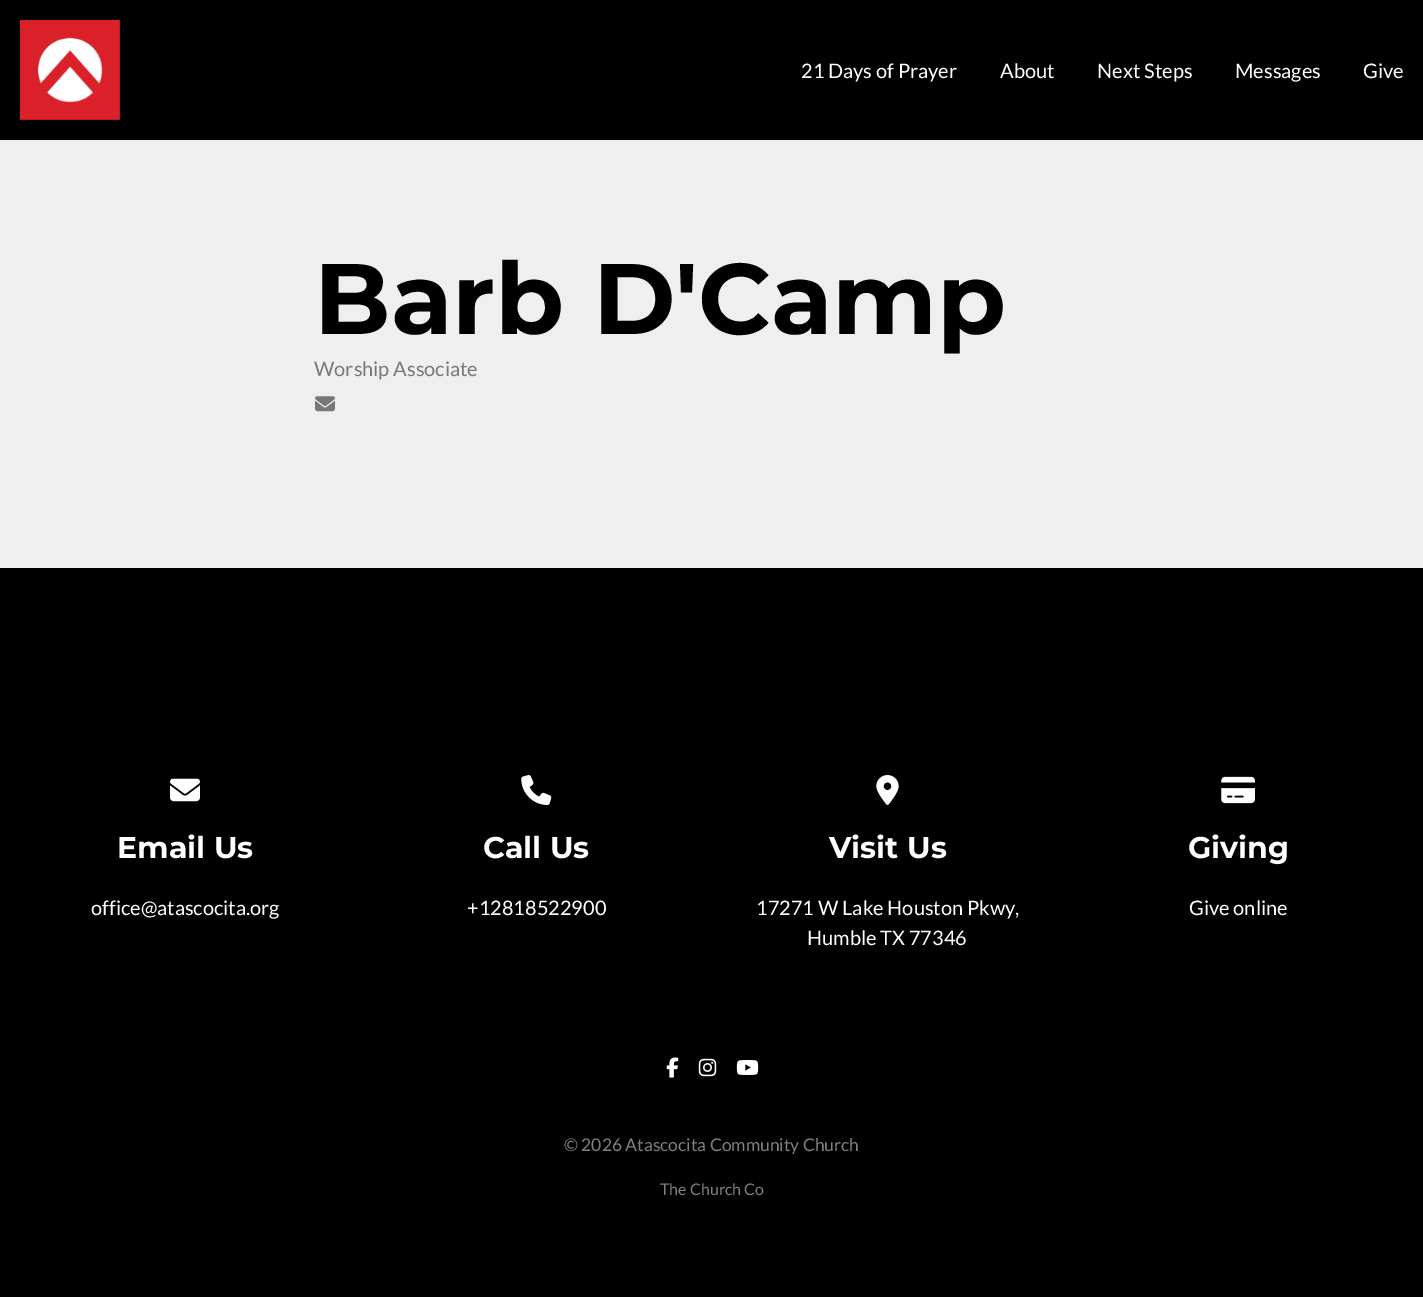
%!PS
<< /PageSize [1423 1297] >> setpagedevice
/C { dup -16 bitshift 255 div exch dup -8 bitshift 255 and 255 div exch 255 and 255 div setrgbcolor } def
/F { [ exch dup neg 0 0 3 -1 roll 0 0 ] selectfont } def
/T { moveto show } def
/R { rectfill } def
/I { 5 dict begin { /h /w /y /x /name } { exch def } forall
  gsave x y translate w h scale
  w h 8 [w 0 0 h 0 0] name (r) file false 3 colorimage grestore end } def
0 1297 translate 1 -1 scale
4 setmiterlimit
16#EFEFEF C
0 0 1423 1297 R
16#000000 C
0 0 1423 140 R
(1.rgb) 20 20 100 100 I
/Lato-Regular 20 F
16#FFFFFF C
(21 Days of Prayer) 801 78 T
(About) 1000 78 T
(Next Steps) 1097 78 T
(Messages) 1235 78 T
(Give) 1363 78 T
/Montserrat-Bold 100 F
16#000000 C
(Barb D'Camp) 314 334 T
/Lato-Regular 20 F
16#787878 C
(Worship Associate) 314 376 T
(2.rgb) 315 396 20 16 I
16#000000 C
0 568 1423 729 R
(3.rgb) 170 778 30 24 I
/Montserrat-Bold 30 F
16#FFFFFF C
(Email Us) 117 858 T
/Lato-Regular 20 F
(office@atascocita.org) 91 915 T
(4.rgb) 521 775 31 30 I
/Montserrat-Bold 30 F
(Call Us) 483 858 T
/Lato-Regular 20 F
(+12818522900) 467 915 T
(5.rgb) 876 775 23 30 I
/Montserrat-Bold 30 F
(Visit Us) 829 858 T
/Lato-Regular 20 F
(17271 W Lake Houston Pkwy,) 756 915 T
(Humble TX 77346) 807 945 T
(6.rgb) 1221 776 34 28 I
/Montserrat-Bold 30 F
(Giving) 1188 858 T
/Lato-Regular 20 F
(Give online) 1189 915 T
(7.rgb) 666 1057 13 21 I
(8.rgb) 698 1058 19 19 I
(9.rgb) 736 1060 23 15 I
/Lato-Regular 17.5 F
16#808080 C
(© 2026 Atascocita Community Church) 564 1151 T
/Lato-Regular 16 F
(The Church Co) 660 1195 T
showpage
